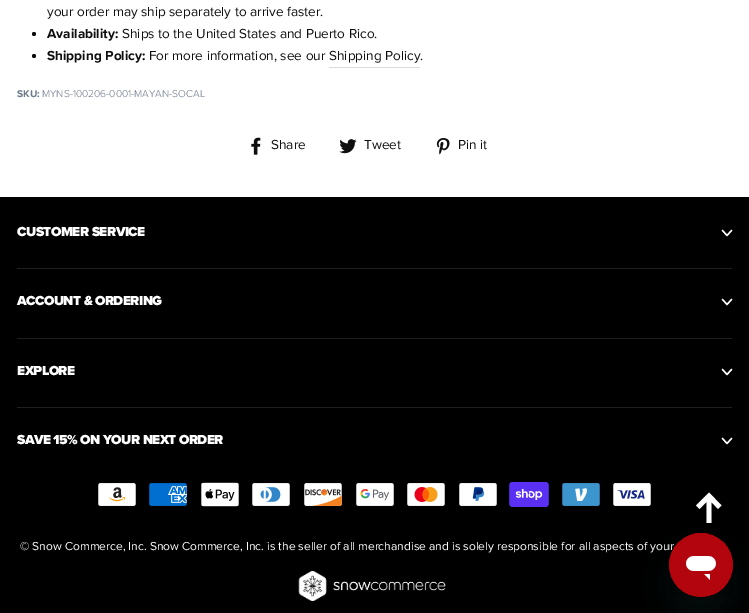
%!PS
<< /PageSize [749 613] /PageUsesTransparency true >> setpagedevice
/m/moveto load def
/l/rlineto load def
/z/closepath load def
/f/fill load def
/s/stroke load def
/w/setlinewidth load def
/C { dup -16 bitshift 255 div exch dup -8 bitshift 255 and 255 div exch 255 and 255 div setrgbcolor } def
/F { [ exch dup neg 0 0 3 -1 roll 0 0 ] selectfont } def
/T { moveto show } def
/R { rectfill } def
/A { dup .setfillconstantalpha .setstrokeconstantalpha } def
/O { newpath 0 360 arc closepath } def
/Q { 5 dict begin { /r /h /w /y /x } { exch def } forall
  x r add y moveto x w add y 2 copy h add r arct x w add y h add x 1 index r arct
  x y h add x y r arct x y 2 copy exch w add exch r arct closepath end } def
/S { 12 dict begin { /a /b /q /h /w /y /x } { exch def } forall gsave /was 0 def
  9 -2 -9 { dup b mul 4 div /e exch def 1 sub .425 mul 2.718 exch exp 1 add a .99 .min exch div /now exch def
    1 1 now sub 1 was sub div sub A /was now def
    w h .min e 2 mul add 0 gt { x e sub y e sub w e 2 mul add h e 2 mul add
      q e add b .6 mul add w h .min 2 div e add .min 0 .max Q fill } if } for grestore end } def
/I { 5 dict begin { /h /w /y /x /name } { exch def } forall
  gsave x y translate w h scale
  w h 8 [w 0 0 h 0 0] name (r) file false 3 colorimage grestore end } def
0 .pushpdf14devicefilter
0 613 translate 1 -1 scale
4 setmiterlimit
16#FFFFFF C
0 0 749 613 R
/ProximaNova-Regular 13.6 F
16#0F0F0F C
(your order may ship separately to arrive faster.) 47 16 T
34 34 2 O f
/ProximaNova-Bold 13.6 F
(Availability:) 47 38 T
/ProximaNova-Regular 13.6 F
(Ships to the United States and Puerto Rico.) 122 38 T
34 56 2 O f
/ProximaNova-Bold 13.6 F
(Shipping Policy:) 47 60 T
/ProximaNova-Regular 13.6 F
(For more information, see our) 149 60 T
16#DBDBDB C
329 67 91 1 R
16#0F0F0F C
(.) 420 60 T
(Shipping Policy) 329 60 T
/ProximaNova-Bold 10.25 F
16#6A7889 C
(SKU:) 17 97 T
/ProximaNova-Light 10.25 F
(MYNS-100206-0001-MAYAN-SOCAL) 42 97 T
(1.rgb) 251 137 10 18 I
/ProximaNova-Regular 13.6 F
16#0F0F0F C
(Share) 271 149 T
(2.rgb) 339 139 18 15 I
(Tweet) 364 149 T
(3.rgb) 436 138 14 17 I
(Pin it) 458 149 T
16#000000 C
0 197 749 416 R
/ProximaNova-Black 13.6 F
16#FFFFFF C
17 236 m -.55 0 (CUSTOMER SERVICE) ashow
1.4 w
1 setlinecap
1 setlinejoin
722.5 230.5 m 4.5 5 l 4.5 -5 l s
16#1F1F1F C
17 268 715 1 R
16#FFFFFF C
17 305 m -.55 0 (ACCOUNT & ORDERING) ashow
722.5 299.5 m 4.5 5 l 4.5 -5 l s
16#1F1F1F C
17 338 715 1 R
16#FFFFFF C
17 375 m -.55 0 (EXPLORE) ashow
722.5 369.5 m 4.5 5 l 4.5 -5 l s
16#1F1F1F C
17 407 715 1 R
16#FFFFFF C
17 444 m -.55 0 (SAVE 15% ON YOUR NEXT ORDER) ashow
722.5 438.5 m 4.5 5 l 4.5 -5 l s
(4.rgb) 98 483 38 23 I
(5.rgb) 149 483 38 23 I
(6.rgb) 201 482 38 25 I
(7.rgb) 252 483 38 23 I
(8.rgb) 304 483 38 23 I
(9.rgb) 356 483 38 23 I
(10.rgb) 407 483 38 23 I
(11.rgb) 459 483 38 23 I
(12.rgb) 509 482 40 25 I
(13.rgb) 562 483 38 23 I
(14.rgb) 613 483 38 23 I
/ProximaNova-Regular 12 F
(© Snow Commerce, Inc. Snow Commerce, Inc. is the seller of all merchandise and is solely responsible for all aspects of your) 20 550 T
(15.rgb) 298 571 148 30 I
706.5 502 m 0 21 l 5 0 l 0 -21 l 6.5 7 l 3.5 -3.5 l -12.5 -13 l -13 13 l 3.5 3.5 l z f
16#17494D C
669 553 64 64 32 15 .15 S
(16.rgb) 669 533 64 64 I
.poppdf14devicefilter showpage
